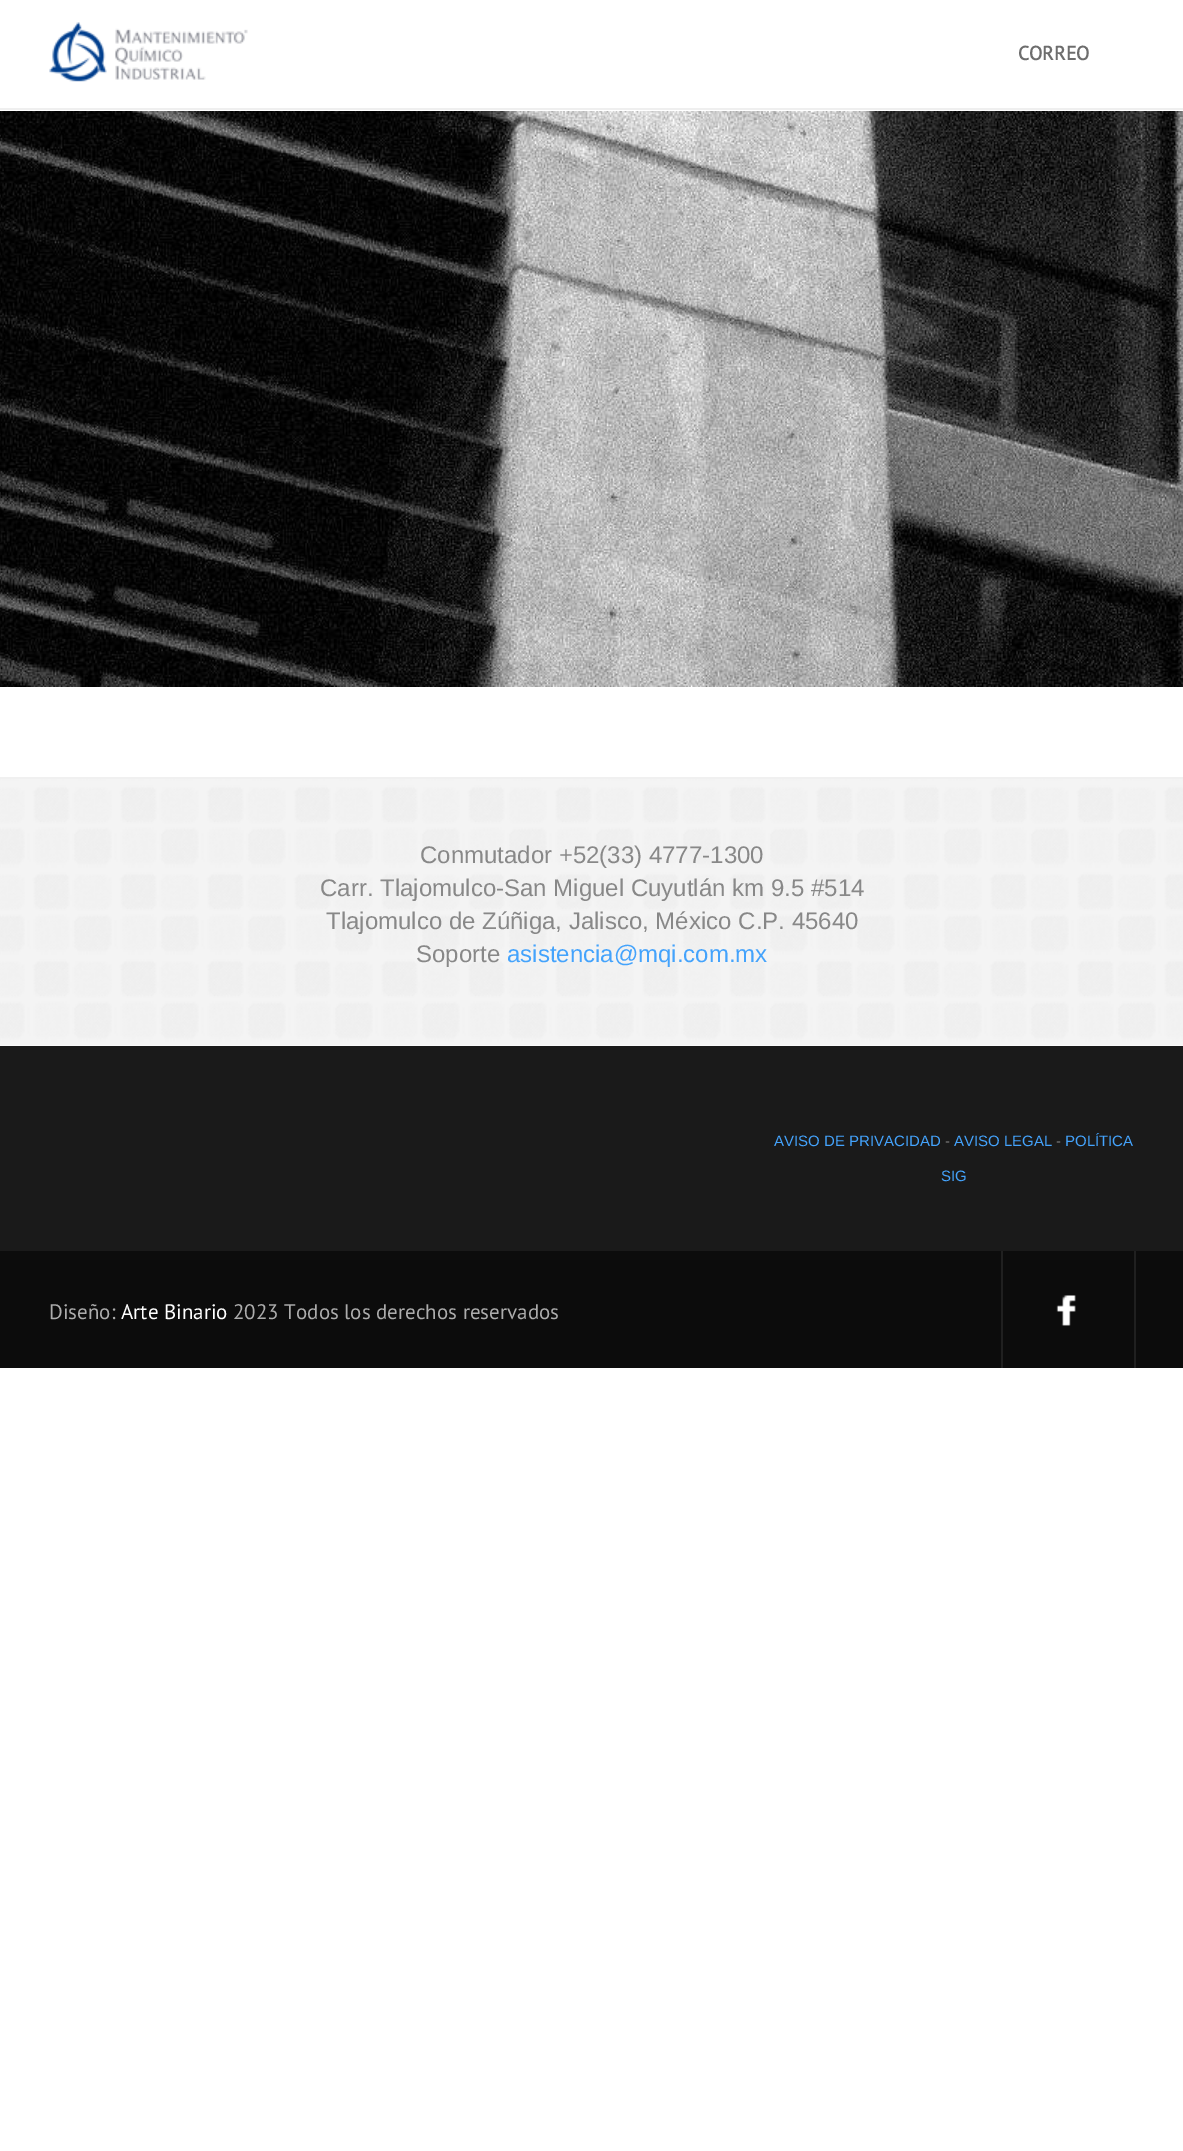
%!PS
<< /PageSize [1183 2151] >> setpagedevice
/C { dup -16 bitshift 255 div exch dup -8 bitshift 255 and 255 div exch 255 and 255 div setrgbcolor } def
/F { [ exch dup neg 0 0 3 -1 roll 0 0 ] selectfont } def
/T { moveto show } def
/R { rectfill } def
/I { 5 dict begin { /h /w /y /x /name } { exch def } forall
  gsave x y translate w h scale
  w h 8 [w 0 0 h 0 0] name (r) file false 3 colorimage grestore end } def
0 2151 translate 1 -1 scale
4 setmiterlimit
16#FFFFFF C
0 0 1183 2151 R
16#EFEFEF C
0 108 1183 2 R
(1.rgb) 49 22 199 60 I
/PTSans-Bold 19.5 F
16#6D6D6D C
(CORREO) 1018 60 T
(2.rgb) 0 111 1183 576 I
16#F9F9F9 C
0 1045 1183 1 R
(3.rgb) 0 779 1183 266 I
16#F0F0F0 C
0 777 1183 2 R
/LiberationSans-Regular 24 F
16#888888 C
(Conmutador +52\(33\) 4777-1300) 420 863 T
(Carr. Tlajomulco-San Miguel Cuyutlán km 9.5 #514) 320 896 T
(Tlajomulco de Zúñiga, Jalisco, México C.P. 45640) 326 929 T
(Soporte) 416 962 T
16#44A3FC C
(asistencia@mqi.com.mx) 507 962 T
16#1A1A1A C
0 1046 1183 205 R
/LiberationSans-Regular 15 F
16#44A3FC C
(AVISO DE PRIVACIDAD) 774 1146 T
16#888888 C
(-) 945 1146 T
16#44A3FC C
(AVISO LEGAL) 954 1146 T
16#888888 C
(-) 1056 1146 T
16#44A3FC C
(POLÍTICA) 1065 1146 T
(SIG) 941 1181 T
16#0C0C0C C
0 1251 1183 117 R
/PTSans-Regular 21 F
16#ACACAC C
(Diseño:) 49 1319 T
16#FFFFFF C
(Arte Binario) 121 1319 T
16#ACACAC C
(2023 Todos los derechos reservados) 233 1319 T
16#202020 C
1001 1251 2 117 R
1134 1251 2 117 R
(4.rgb) 1056 1295 20 31 I
showpage
